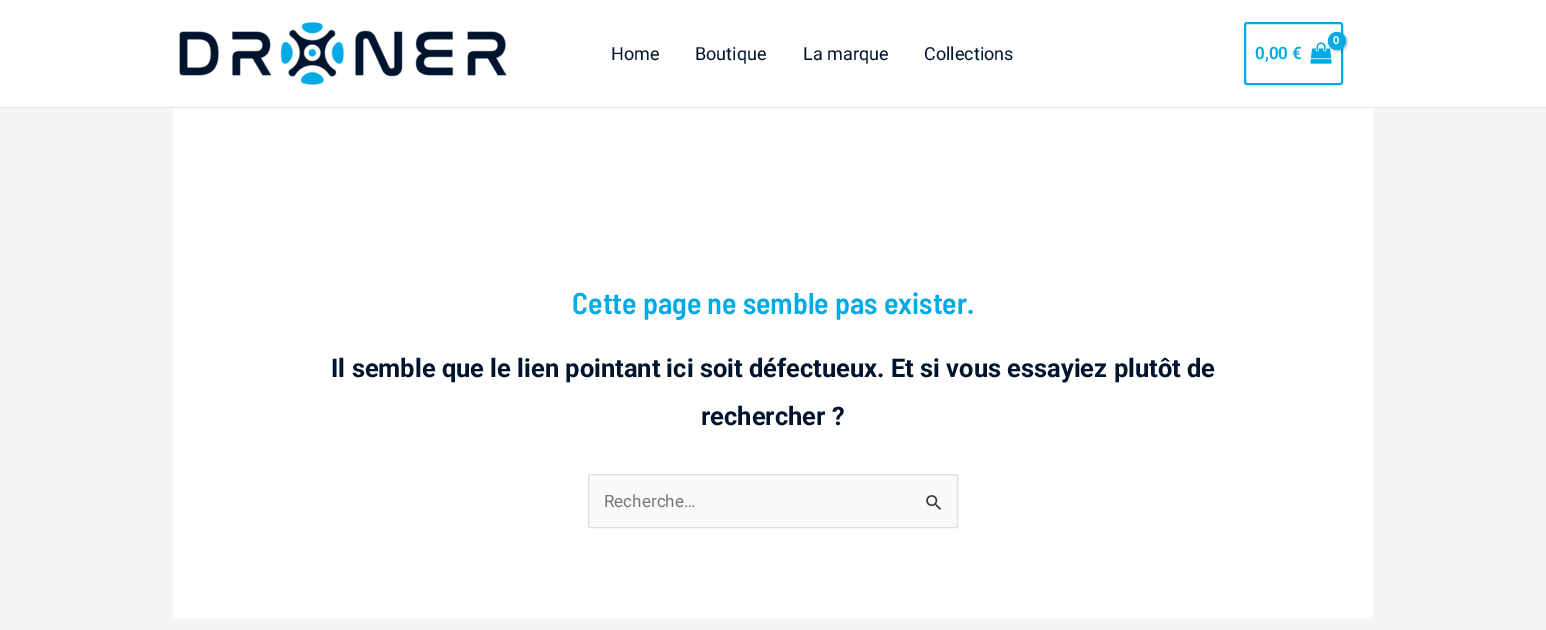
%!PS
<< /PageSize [1546 630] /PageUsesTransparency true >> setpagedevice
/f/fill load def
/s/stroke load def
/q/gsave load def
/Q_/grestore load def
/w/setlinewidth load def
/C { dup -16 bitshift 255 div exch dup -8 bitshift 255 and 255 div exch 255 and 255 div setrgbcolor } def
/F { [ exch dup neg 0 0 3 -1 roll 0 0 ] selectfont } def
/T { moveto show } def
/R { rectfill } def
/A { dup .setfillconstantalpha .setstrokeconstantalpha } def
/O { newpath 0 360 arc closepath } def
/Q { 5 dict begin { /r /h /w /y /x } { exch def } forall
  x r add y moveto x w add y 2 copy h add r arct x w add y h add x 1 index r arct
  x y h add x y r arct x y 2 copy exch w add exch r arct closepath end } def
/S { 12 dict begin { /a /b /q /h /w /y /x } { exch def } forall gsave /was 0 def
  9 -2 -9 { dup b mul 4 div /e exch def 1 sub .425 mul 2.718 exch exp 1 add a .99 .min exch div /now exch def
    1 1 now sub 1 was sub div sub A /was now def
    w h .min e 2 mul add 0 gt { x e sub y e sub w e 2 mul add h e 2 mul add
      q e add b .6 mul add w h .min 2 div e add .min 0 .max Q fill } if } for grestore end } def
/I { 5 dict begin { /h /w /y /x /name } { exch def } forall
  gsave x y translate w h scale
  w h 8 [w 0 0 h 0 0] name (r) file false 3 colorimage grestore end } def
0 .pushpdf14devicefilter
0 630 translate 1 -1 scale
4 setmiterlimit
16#F5F5F5 C
0 0 1546 630 R
16#FFFFFF C
0 0 1546 107 R
16#EAEAEA C
0 107 1546 1 R
(1.rgb) 179 22 328 63 I
/Roboto-Regular 18 F
16#00142E C
(Home) 611 60 T
(Boutique) 695 60 T
(La marque) 803 60 T
(Collections) 924 60 T
16#00AAE5 C
2 w
1245 23 97 61 2 Q s
(2.rgb) 1310 42 22 22 I
16#000000 C
1329 33 18 18 9 1.5 .3 S
16#00AAE5 C
1337 41 9 O f
/Roboto-Bold 11 F
16#FFFFFF C
(0) 1333 44 T
/Roboto-SemiBold 17 F
16#00AAE5 C
(0,00 €) 1255 59 T
16#FFFFFF C
173 108 1200 511 R
/BarlowSemiCondensed-SemiBold 30 F
16#00AAE5 C
(Cette page ne semble pas exister.) 572 314 T
/Roboto-Bold 25.5 F
16#00142E C
(Il semble que le lien pointant ici soit défectueux. Et si vous essayiez plutôt de) 331 377 T
(rechercher ?) 701 425 T
16#FAFAFA C
588.5 474.5 369 53 1.5 Q q f Q_
16#DDDDDD C
1 w
s
/Roboto-Regular 17 F
16#757575 C
(Recherche…) 604 507 T
(3.rgb) 926 495 15 15 I
.poppdf14devicefilter showpage
